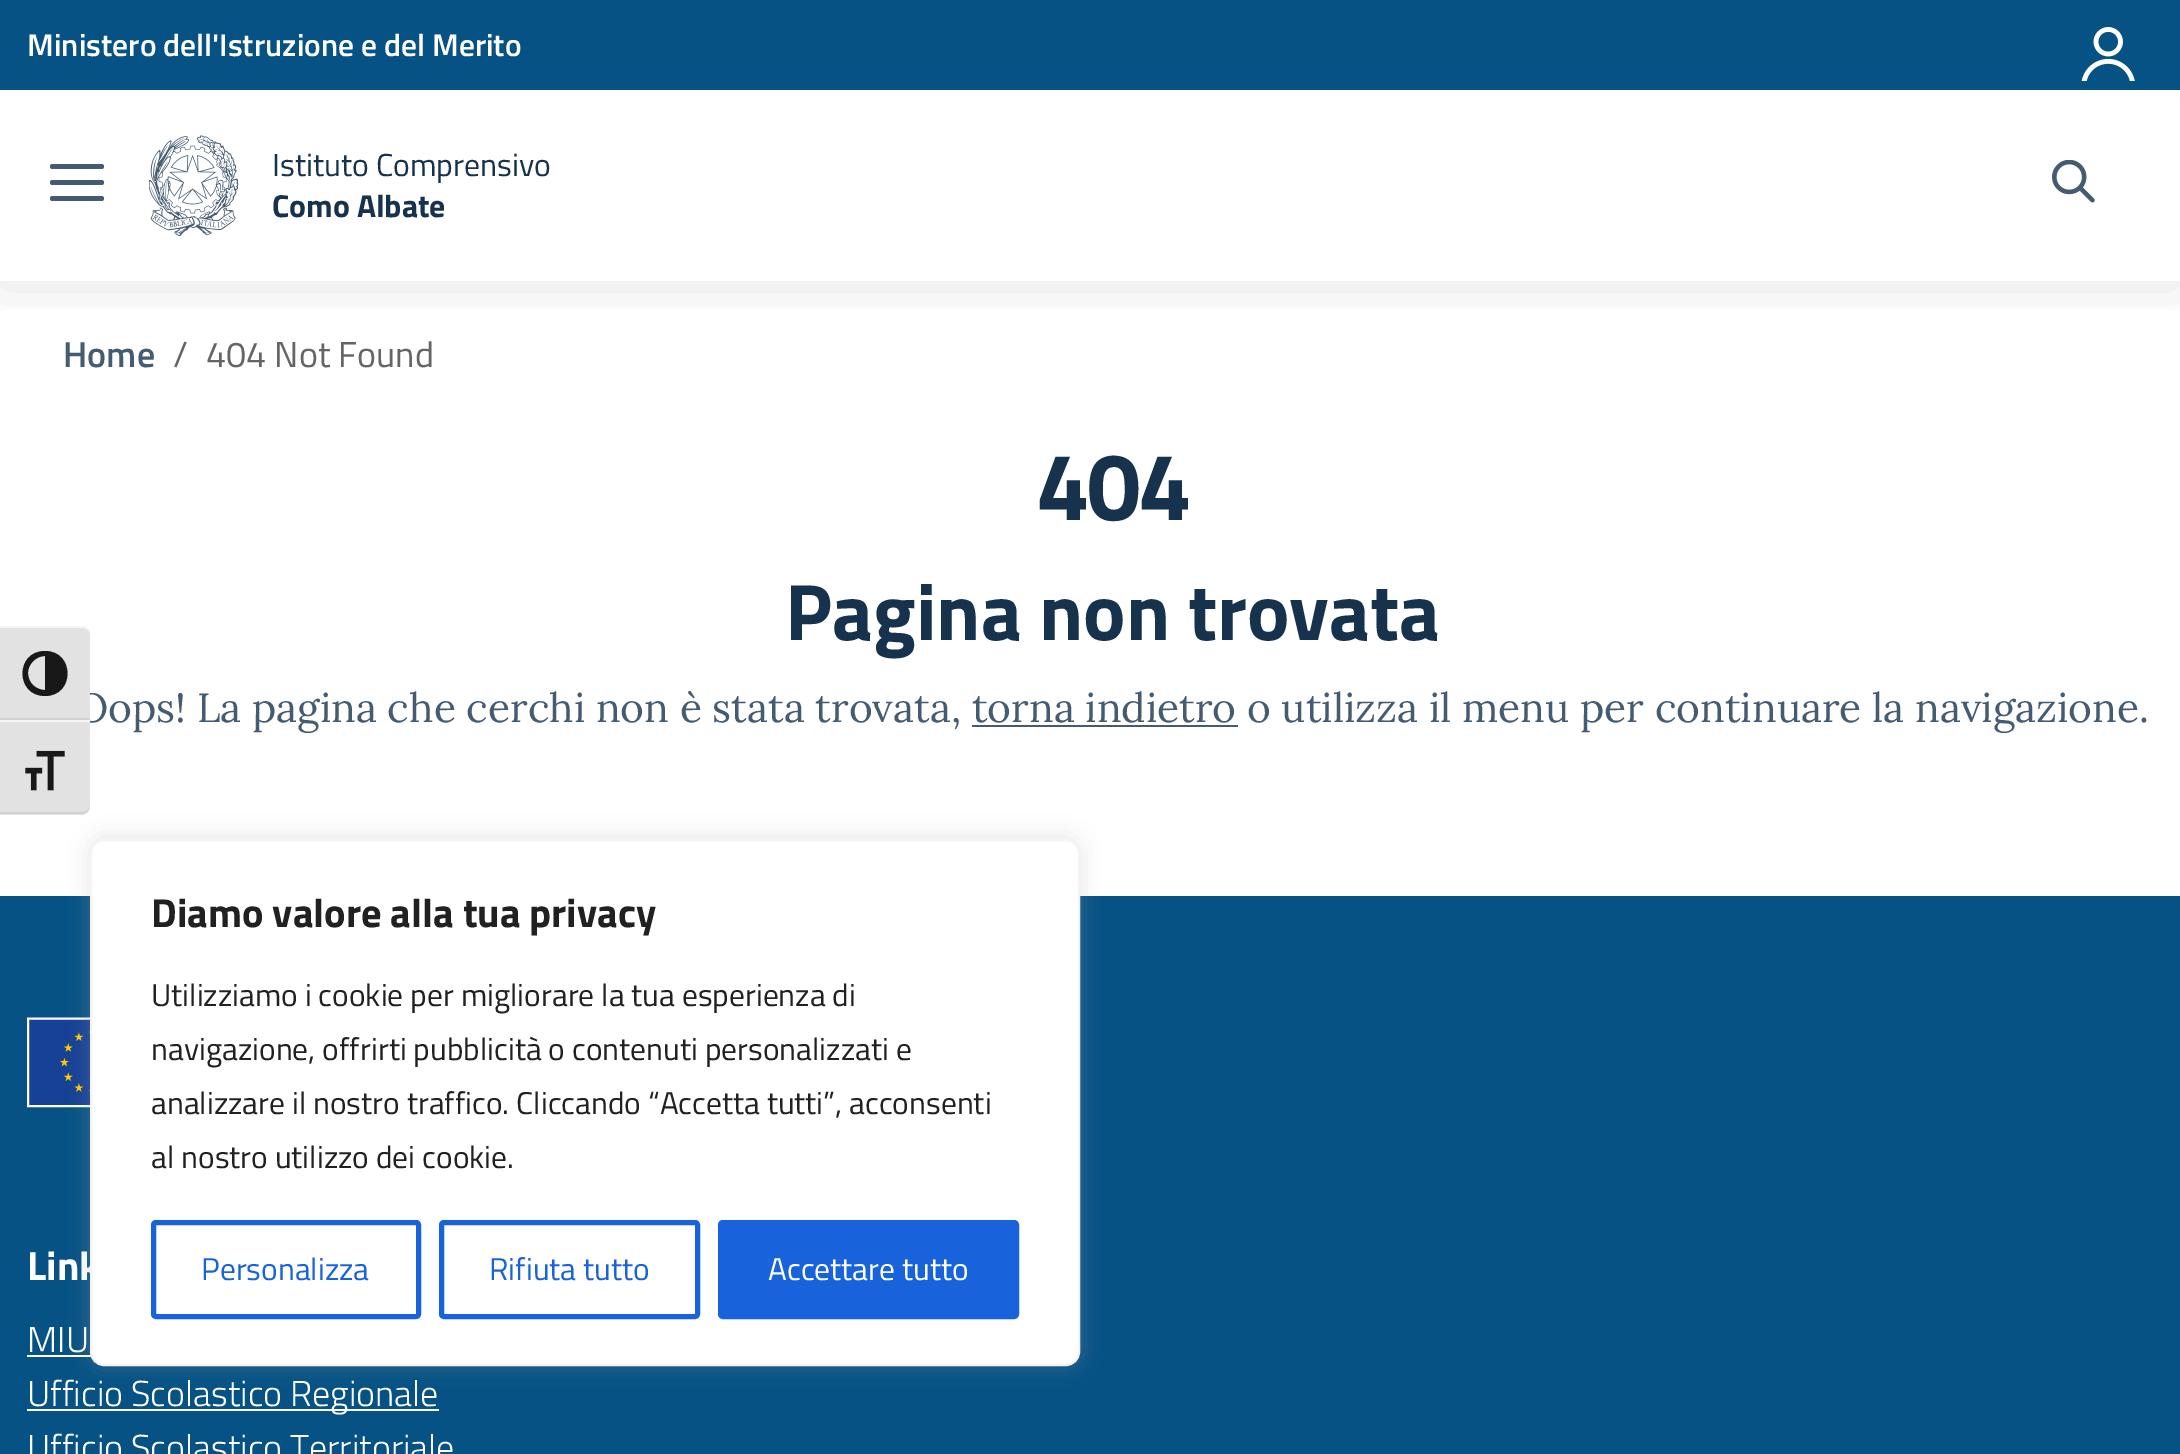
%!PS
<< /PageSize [2180 1454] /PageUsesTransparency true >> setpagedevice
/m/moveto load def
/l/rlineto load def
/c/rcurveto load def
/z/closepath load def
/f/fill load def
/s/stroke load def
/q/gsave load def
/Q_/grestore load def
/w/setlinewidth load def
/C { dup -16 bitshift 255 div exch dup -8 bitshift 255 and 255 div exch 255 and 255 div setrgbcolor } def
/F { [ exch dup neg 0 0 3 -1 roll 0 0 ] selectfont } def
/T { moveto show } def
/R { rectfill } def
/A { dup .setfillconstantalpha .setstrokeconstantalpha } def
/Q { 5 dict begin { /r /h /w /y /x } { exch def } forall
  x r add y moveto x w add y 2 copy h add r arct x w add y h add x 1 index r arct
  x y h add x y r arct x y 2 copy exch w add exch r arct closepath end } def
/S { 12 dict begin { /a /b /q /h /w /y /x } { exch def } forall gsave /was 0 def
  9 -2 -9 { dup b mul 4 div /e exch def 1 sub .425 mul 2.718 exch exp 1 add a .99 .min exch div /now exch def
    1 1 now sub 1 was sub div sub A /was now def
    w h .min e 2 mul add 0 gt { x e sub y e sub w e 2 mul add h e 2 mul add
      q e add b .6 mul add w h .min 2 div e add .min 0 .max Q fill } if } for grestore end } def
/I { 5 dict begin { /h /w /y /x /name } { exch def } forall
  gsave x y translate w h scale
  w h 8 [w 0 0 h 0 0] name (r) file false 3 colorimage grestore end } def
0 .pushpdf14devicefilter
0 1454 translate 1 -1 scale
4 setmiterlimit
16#FFFFFF C
0 0 2180 1454 R
q
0 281 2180 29 rectclip
16#000000 C
0 5 2180 281 0 28 .1 S
Q_
16#075285 C
0 0 2180 90 R
/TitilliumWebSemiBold-SemiBold 31.5 F
16#FFFFFF C
(Ministero dell'Istruzione e del Merito) 27 56 T
(1.rgb) 2081 27 54 54 I
16#455B71 C
50 180 54 5 2.5 Q f
50 164 54 5 2.5 Q f
50 196 54 5 2.5 Q f
(2.rgb) 149 135 90 101 I
/TitilliumWeb-Regular 31.75 F
16#17324D C
(Istituto Comprensivo) 272 176 T
/TitilliumWeb-Bold 31.75 F
(Como Albate) 272 217 T
(3.rgb) 2052 160 43 43 I
/TitilliumWebSemiBold-SemiBold 36 F
16#455B71 C
(Home) 63 367 T
/TitilliumWeb-Regular 36 F
16#656566 C
(/) 173 367 T
(404 Not Found) 206 367 T
/TitilliumWeb-Bold 96 F
16#17324D C
1036 520 m -3 0 (404) ashow
/TitilliumWeb-Bold 80 F
(Pagina non trovata) 785 640 T
/Lora-Regular 40.68 F
16#455B71 C
(Oops! La pagina che cerchi non è stata trovata, torna indietro o utilizza il menu per continuare la navigazione.) 76 722 T
972 725 266 2 R
16#075285 C
0 896 2180 558 R
(4.rgb) 27 1017 63 91 I
/TitilliumWeb-Bold 40.68 F
16#FFFFFF C
(Link) 27 1280 T
/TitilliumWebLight-Light 36 F
(MIU) 27 1352 T
27 1355 64 2 R
27 1409 412 2 R
(Ufficio Scolastico Regionale) 27 1406 T
(Ufficio Scolastico Territoriale) 27 1460 T
16#E2E2E2 C
0 626 m 81 0 l 5 0 9 4 9 9 c 0 85 l -90 0 l z f
16#F5F5F5 C
0 628 m 81 0 l 5 0 9 3 9 6 c 0 -4 -4 -8 -9 -8 c -81 0 l z f
16#D2D2D2 C
0 718 90 2 R
16#181818 C
45 651 m -30 0 -30 45 0 45 c 30 0 30 -45 0 -45 c z 28 673 m 0 -9 8 -17 17 -17 c 0 34 l -9 0 -17 -7 -17 -17 c z f
16#E2E2E2 C
0 720 m 90 0 l 0 86 l 0 5 -4 9 -9 9 c -81 0 l z f
16#F5F5F5 C
0 720 90 2 R
16#D2D2D2 C
0 812 m 0 2 l 81 0 l 5 0 9 -4 9 -8 c 0 3 -4 6 -9 6 c z f
(5.rgb) 25 750 40 41 I
16#ACABAB C
90 837 990 527 14 11 .3 S
16#FFFFFF C
91 840 988 525 13 Q q f Q_
16#F4F4F4 C
2 w
s
/TitilliumWeb-Bold 40.5 F
16#212121 C
(Diamo valore alla tua privacy) 151 927 T
/TitilliumWeb-Regular 31.5 F
(Utilizziamo i cookie per migliorare la tua esperienza di) 151 1006 T
(navigazione, offrirti pubblicità o contenuti personalizzati e) 151 1060 T
(analizzare il nostro traffico. Cliccando “Accetta tutti”, acconsenti) 151 1114 T
(al nostro utilizzo dei cookie.) 151 1168 T
16#1863DC C
5 w
153.5 1222.5 265 94 2.5 Q s
(Personalizza) 201 1280 T
441.5 1222.5 256 94 2.5 Q s
(Rifiuta tutto) 489 1280 T
720.5 1222.5 296 94 2.5 Q q f Q_
s
16#FFFFFF C
(Accettare tutto) 768 1280 T
.poppdf14devicefilter showpage
